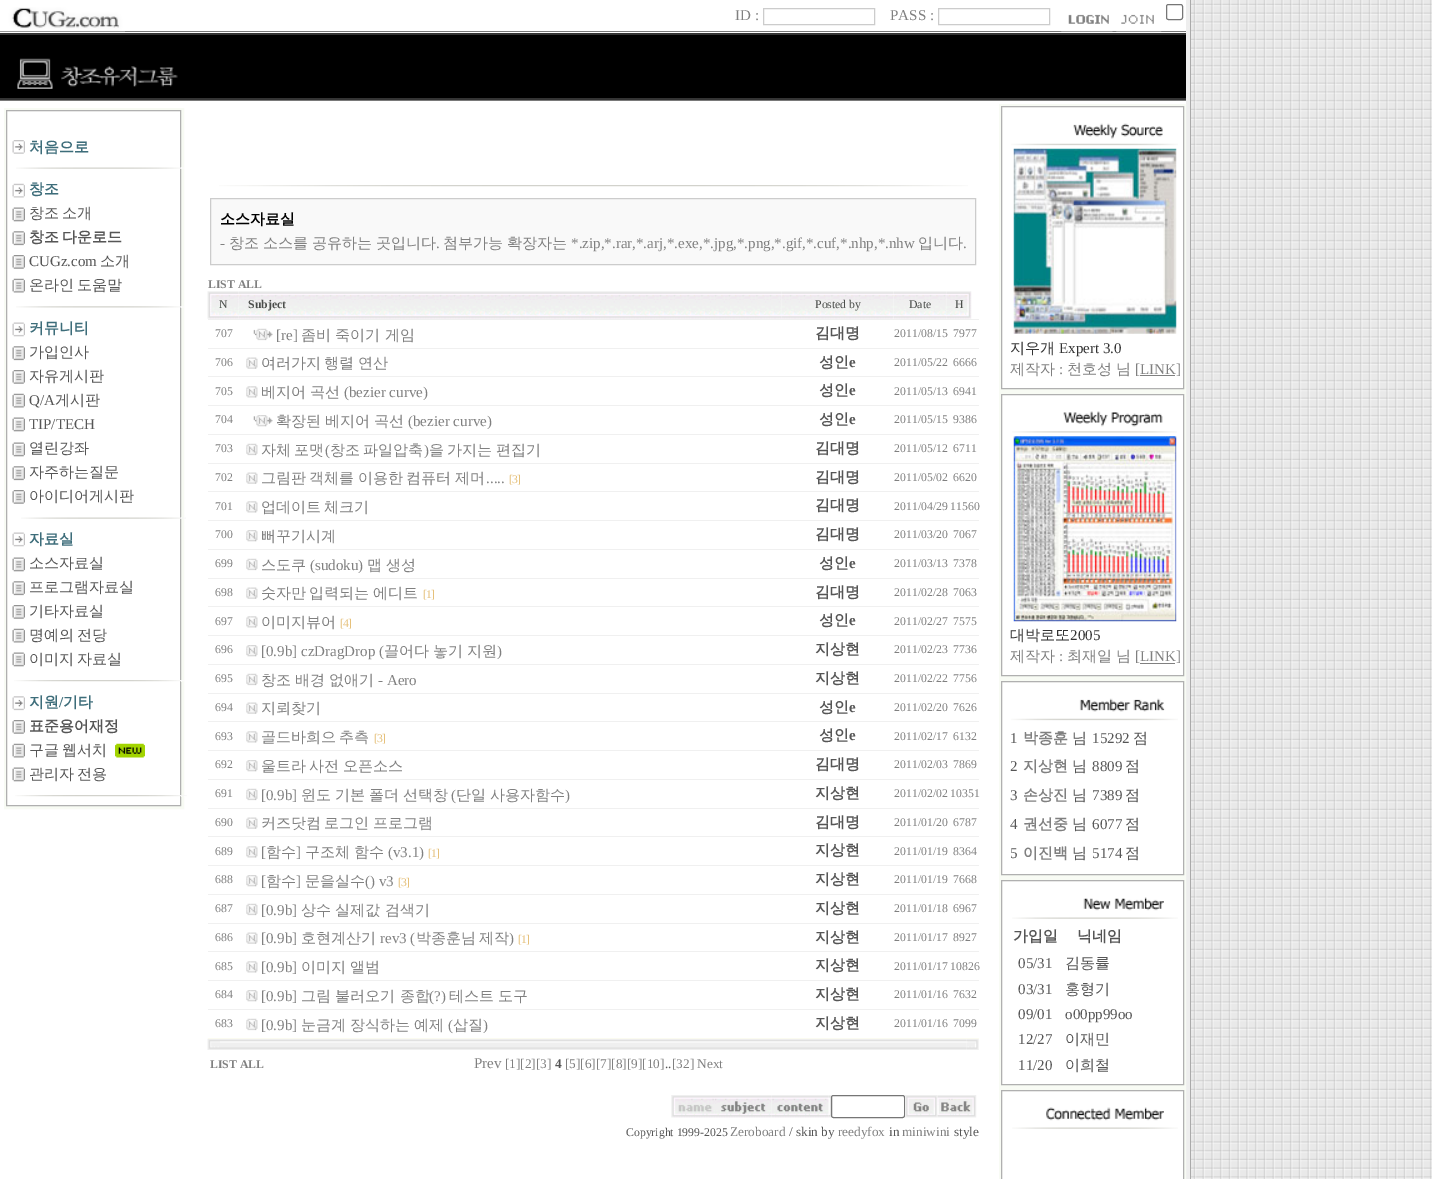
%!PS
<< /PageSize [1432 1179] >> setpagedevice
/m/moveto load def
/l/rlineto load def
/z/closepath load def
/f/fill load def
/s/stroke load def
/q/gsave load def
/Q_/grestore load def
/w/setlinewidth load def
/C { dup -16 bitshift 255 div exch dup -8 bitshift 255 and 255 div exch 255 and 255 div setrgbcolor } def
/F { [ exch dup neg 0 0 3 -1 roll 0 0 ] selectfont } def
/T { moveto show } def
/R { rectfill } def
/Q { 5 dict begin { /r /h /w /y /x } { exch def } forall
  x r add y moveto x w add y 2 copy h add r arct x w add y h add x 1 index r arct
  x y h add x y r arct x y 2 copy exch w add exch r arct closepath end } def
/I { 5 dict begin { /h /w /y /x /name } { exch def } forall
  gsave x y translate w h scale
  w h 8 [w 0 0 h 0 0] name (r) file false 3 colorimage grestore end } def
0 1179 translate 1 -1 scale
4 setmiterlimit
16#FFFFFF C
0 0 1432 1179 R
(1.rgb) 1191 0 241 1179 I
16#797979 C
0 31 1186 1 R
(2.rgb) 0 7 125 25 I
/LiberationSerif-Regular 15 F
16#808080 C
(ID :) 735 20 T
16#CCCCCC C
763.5 8.5 111 16 rectstroke
16#808080 C
(PASS :) 890 20 T
16#CCCCCC C
938.5 8.5 111 16 rectstroke
(3.rgb) 1061 14 52 18 I
(4.rgb) 1116 14 46 18 I
16#767676 C
1166.5 4.5 16 15 2 Q s
16#EEEEEE C
1186 0 4 1179 R
16#AAAAAA C
1190 0 1 1179 R
16#343434 C
0 33 1186 2 R
16#000000 C
0 35 1186 63 R
(5.rgb) 17 58 161 31 I
16#343434 C
0 98 1186 2 R
16#797979 C
0 100 1186 1 R
16#F8FBF4 C
3 w
5.5 109.5 177 698 rectstroke
16#B0B0B0 C
1 w
6.5 110.5 174 695 rectstroke
(6.rgb) 12 140 13 14 I
/WenQuanYiZenHei-Bold 15 F
16#3D6D7A C
(처음으로) 29 152 T
(7.rgb) 16 167 168 2 I
(8.rgb) 12 183 13 15 I
(창조) 29 194 T
(9.rgb) 12 207 13 15 I
/WenQuanYiZenHei-Medium 15 F
16#565656 C
29 218 m -1 0 32 (창조 소개) widthshow
(10.rgb) 12 231 13 15 I
/WenQuanYiZenHei-Bold 15 F
29 242 m -1 0 32 (창조 다운로드) widthshow
(11.rgb) 12 255 13 14 I
/LiberationSerif-Regular 15 F
(CUGz.com) 29 266 T
/WenQuanYiZenHei-Medium 15 F
(소개) 100 266 T
(12.rgb) 12 278 13 15 I
29 290 m -1 0 32 (온라인 도움말) widthshow
(13.rgb) 16 306 168 2 I
(14.rgb) 12 322 13 15 I
/WenQuanYiZenHei-Bold 15 F
16#3D6D7A C
(커뮤니티) 29 333 T
(10.rgb) 12 346 13 15 I
/WenQuanYiZenHei-Medium 15 F
16#565656 C
(가입인사) 29 357 T
(11.rgb) 12 370 13 14 I
(자유게시판) 29 381 T
(12.rgb) 12 393 13 15 I
/LiberationSerif-Regular 15 F
(Q/A) 29 405 T
/WenQuanYiZenHei-Medium 15 F
(게시판) 55 405 T
(9.rgb) 12 417 13 15 I
/LiberationSerif-Regular 15 F
(TIP/TECH) 29 429 T
(9.rgb) 12 442 13 15 I
/WenQuanYiZenHei-Medium 15 F
(열린강좌) 29 453 T
(10.rgb) 12 466 13 15 I
(자주하는질문) 29 477 T
(11.rgb) 12 490 13 14 I
(아이디어게시판) 29 501 T
(15.rgb) 21 517 165 2 I
(14.rgb) 12 532 13 15 I
/WenQuanYiZenHei-Bold 15 F
16#3D6D7A C
(자료실) 29 544 T
(9.rgb) 12 557 13 15 I
/WenQuanYiZenHei-Medium 15 F
16#565656 C
(소스자료실) 29 568 T
(10.rgb) 12 581 13 15 I
(프로그램자료실) 29 592 T
(11.rgb) 12 605 13 14 I
(기타자료실) 29 616 T
(12.rgb) 12 628 13 15 I
29 640 m -1 0 32 (명예의 전당) widthshow
(9.rgb) 12 652 13 15 I
29 664 m -1 0 32 (이미지 자료실) widthshow
(16.rgb) 14 680 170 2 I
(17.rgb) 12 696 13 15 I
/WenQuanYiZenHei-Bold 15 F
16#3D6D7A C
(지원) 29 707 T
/LiberationSerif-Bold 15 F
(/) 59 707 T
/WenQuanYiZenHei-Bold 15 F
(기타) 63 707 T
(11.rgb) 12 720 13 14 I
16#565656 C
(표준용어재정) 29 731 T
(12.rgb) 12 743 13 15 I
/WenQuanYiZenHei-Medium 15 F
29 755 m -1 0 32 (구글 웹서치) widthshow
(18.rgb) 115 743 30 15 I
(9.rgb) 12 767 13 15 I
29 779 m -1 0 32 (관리자 전용) widthshow
(19.rgb) 15 795 172 2 I
(20.rgb) 219 185 749 2 I
16#F9F9F9 C
210.5 198.5 m 765 0 l 0 66 l -765 0 l z q f Q_
16#CCCCCC C
s
/WenQuanYiZenHei-Bold 15 F
16#000000 C
(소스자료실) 220 224 T
/LiberationSerif-Regular 15 F
16#808080 C
(-) 220 248 T
/WenQuanYiZenHei-Medium 15 F
229 248 m -.5 0 32 (창조 소스를 공유하는 곳입니다) widthshow
443 248 m -.5 0 32 (첨부가능 확장자는) widthshow
/LiberationSerif-Regular 15 F
(*.zip,*.rar,*.arj,*.exe,*.jpg,*.png,*.gif,*.cuf,*.nhp,*.nhw) 571 248 T
/WenQuanYiZenHei-Medium 15 F
(입니다) 918 248 T
/LiberationSerif-Regular 15 F
(.) 436 248 T
(.) 963 248 T
/LiberationSerif-Bold 11.75 F
(LIST ALL) 208 288 T
(21.rgb) 207 291 32 28 I
/LiberationSerif-Regular 11.75 F
16#4A4D4A C
(N) 219 308 T
(22.rgb) 239 291 543 28 I
/LiberationSerif-Bold 11.75 F
(Subject) 248 308 T
(23.rgb) 781 291 113 28 I
/LiberationSerif-Regular 11.75 F
(Posted by) 815 308 T
(24.rgb) 894 291 53 28 I
(Date) 909 308 T
(25.rgb) 946 291 26 28 I
(H) 955 308 T
16#F0F0F0 C
208 319 771 1 R
16#808080 C
(707) 215 337 T
(26.rgb) 253 328 20 13 I
/LiberationSerif-Regular 15 F
([re]) 276 340 T
/WenQuanYiZenHei-Medium 15 F
(좀비 죽이기 게임) 301 340 T
/WenQuanYiZenHei-Bold 15 F
16#565656 C
(김대명) 815 338 T
/LiberationSerif-Regular 11.75 F
16#808080 C
(2011/08/15) 894 337 T
(7977) 953 337 T
16#F0F0F0 C
208 348 771 1 R
16#808080 C
(706) 215 366 T
(27.rgb) 246 357 12 12 I
/WenQuanYiZenHei-Medium 15 F
261 368 m -1 0 32 (여러가지 행렬 연산) widthshow
/WenQuanYiZenHei-Bold 15 F
16#565656 C
(성인) 819 367 T
/LiberationSerif-Bold 15 F
(e) 849 367 T
/LiberationSerif-Regular 11.75 F
16#808080 C
(2011/05/22) 894 366 T
(6666) 953 366 T
16#F0F0F0 C
208 376 771 1 R
16#808080 C
(705) 215 395 T
(28.rgb) 246 386 12 12 I
/WenQuanYiZenHei-Medium 15 F
(베지어) 261 397 T
(곡선) 310 397 T
/LiberationSerif-Regular 15 F
(\(bezier curve\)) 344 397 T
/WenQuanYiZenHei-Bold 15 F
16#565656 C
(성인) 819 395 T
/LiberationSerif-Bold 15 F
(e) 849 395 T
/LiberationSerif-Regular 11.75 F
16#808080 C
(2011/05/13) 894 395 T
(6941) 953 395 T
16#F0F0F0 C
208 405 771 1 R
16#808080 C
(704) 215 423 T
(29.rgb) 253 415 20 12 I
/WenQuanYiZenHei-Medium 15 F
(확장된) 276 426 T
(베지어) 325 426 T
(곡선) 374 426 T
/LiberationSerif-Regular 15 F
(\(bezier curve\)) 408 426 T
/WenQuanYiZenHei-Bold 15 F
16#565656 C
(성인) 819 424 T
/LiberationSerif-Bold 15 F
(e) 849 424 T
/LiberationSerif-Regular 11.75 F
16#808080 C
(2011/05/15) 894 423 T
(9386) 953 423 T
16#F0F0F0 C
208 434 771 1 R
16#808080 C
(703) 215 452 T
(30.rgb) 246 443 12 13 I
/WenQuanYiZenHei-Medium 15 F
261 455 m -1 0 32 (자체 포맷) widthshow
/LiberationSerif-Regular 15 F
(\() 325 455 T
/WenQuanYiZenHei-Medium 15 F
330 455 m -1 0 32 (창조 파일압축) widthshow
/LiberationSerif-Regular 15 F
(\)) 424 455 T
/WenQuanYiZenHei-Medium 15 F
429 455 m -1 0 32 (을 가지는 편집기) widthshow
/WenQuanYiZenHei-Bold 15 F
16#565656 C
(김대명) 815 453 T
/LiberationSerif-Regular 11.75 F
16#808080 C
(2011/05/12) 894 452 T
(6711) 953 452 T
16#F0F0F0 C
208 463 771 1 R
16#808080 C
(702) 215 481 T
(27.rgb) 246 472 12 12 I
/WenQuanYiZenHei-Medium 15 F
261 483 m -1 0 32 (그림판 객체를 이용한 컴퓨터 제머) widthshow
/LiberationSerif-Regular 15 F
(.....) 486 483 T
/LiberationSerif-Regular 11.75 F
16#E6C17B C
509 483 m -1 0 ([3]) ashow
/WenQuanYiZenHei-Bold 15 F
16#565656 C
(김대명) 815 482 T
/LiberationSerif-Regular 11.75 F
16#808080 C
(2011/05/02) 894 481 T
(6620) 953 481 T
16#F0F0F0 C
208 491 771 1 R
16#808080 C
(701) 215 510 T
(28.rgb) 246 501 12 12 I
/WenQuanYiZenHei-Medium 15 F
261 512 m -1 0 32 (업데이트 체크기) widthshow
/WenQuanYiZenHei-Bold 15 F
16#565656 C
(김대명) 815 510 T
/LiberationSerif-Regular 11.75 F
16#808080 C
(2011/04/29 11560) 894 510 T
16#F0F0F0 C
208 520 771 1 R
16#808080 C
(700) 215 538 T
(31.rgb) 246 530 12 12 I
/WenQuanYiZenHei-Medium 15 F
(뻐꾸기시계) 261 541 T
/WenQuanYiZenHei-Bold 15 F
16#565656 C
(김대명) 815 539 T
/LiberationSerif-Regular 11.75 F
16#808080 C
(2011/03/20) 894 538 T
(7067) 953 538 T
16#F0F0F0 C
208 549 771 1 R
16#808080 C
(699) 215 567 T
(30.rgb) 246 558 12 13 I
/WenQuanYiZenHei-Medium 15 F
(스도쿠) 261 570 T
/LiberationSerif-Regular 15 F
(\(sudoku\)) 310 570 T
/WenQuanYiZenHei-Medium 15 F
(맵 생성) 367 570 T
/WenQuanYiZenHei-Bold 15 F
16#565656 C
(성인) 819 568 T
/LiberationSerif-Bold 15 F
(e) 849 568 T
/LiberationSerif-Regular 11.75 F
16#808080 C
(2011/03/13) 894 567 T
(7378) 953 567 T
16#F0F0F0 C
208 578 771 1 R
16#808080 C
(698) 215 596 T
(32.rgb) 246 587 12 12 I
/WenQuanYiZenHei-Medium 15 F
261 598 m -1 0 32 (숫자만 입력되는 에디트) widthshow
/LiberationSerif-Regular 11.75 F
16#E6C17B C
423 598 m -1 0 ([1]) ashow
/WenQuanYiZenHei-Bold 15 F
16#565656 C
(김대명) 815 597 T
/LiberationSerif-Regular 11.75 F
16#808080 C
(2011/02/28) 894 596 T
(7063) 953 596 T
16#F0F0F0 C
208 606 771 1 R
16#808080 C
(697) 215 625 T
(28.rgb) 246 616 12 12 I
/WenQuanYiZenHei-Medium 15 F
(이미지뷰어) 261 627 T
/LiberationSerif-Regular 11.75 F
16#E6C17B C
340 627 m -1 0 ([4]) ashow
/WenQuanYiZenHei-Bold 15 F
16#565656 C
(성인) 819 625 T
/LiberationSerif-Bold 15 F
(e) 849 625 T
/LiberationSerif-Regular 11.75 F
16#808080 C
(2011/02/27) 894 625 T
(7575) 953 625 T
16#F0F0F0 C
208 635 771 1 R
16#808080 C
(696) 215 653 T
(31.rgb) 246 645 12 12 I
/LiberationSerif-Regular 15 F
([0.9b] czDragDrop \() 261 656 T
/WenQuanYiZenHei-Medium 15 F
(끌어다) 384 656 T
(놓기) 433 656 T
(지원) 467 656 T
/LiberationSerif-Regular 15 F
(\)) 497 656 T
/WenQuanYiZenHei-Bold 15 F
16#565656 C
(지상현) 815 654 T
/LiberationSerif-Regular 11.75 F
16#808080 C
(2011/02/23) 894 653 T
(7736) 953 653 T
16#F0F0F0 C
208 664 771 1 R
16#808080 C
(695) 215 682 T
(30.rgb) 246 673 12 13 I
/WenQuanYiZenHei-Medium 15 F
(창조) 261 685 T
(배경) 295 685 T
(없애기) 329 685 T
/LiberationSerif-Regular 15 F
(- Aero) 378 685 T
/WenQuanYiZenHei-Bold 15 F
16#565656 C
(지상현) 815 683 T
/LiberationSerif-Regular 11.75 F
16#808080 C
(2011/02/22) 894 682 T
(7756) 953 682 T
16#F0F0F0 C
208 693 771 1 R
16#808080 C
(694) 215 711 T
(27.rgb) 246 702 12 12 I
/WenQuanYiZenHei-Medium 15 F
(지뢰찾기) 261 713 T
/WenQuanYiZenHei-Bold 15 F
16#565656 C
(성인) 819 712 T
/LiberationSerif-Bold 15 F
(e) 849 712 T
/LiberationSerif-Regular 11.75 F
16#808080 C
(2011/02/20) 894 711 T
(7626) 953 711 T
16#F0F0F0 C
208 721 771 1 R
16#808080 C
(693) 215 740 T
(28.rgb) 246 731 12 12 I
/WenQuanYiZenHei-Medium 15 F
261 742 m -1 0 32 (골드바희으 추측) widthshow
/LiberationSerif-Regular 11.75 F
16#E6C17B C
374 742 m -1 0 ([3]) ashow
/WenQuanYiZenHei-Bold 15 F
16#565656 C
(성인) 819 740 T
/LiberationSerif-Bold 15 F
(e) 849 740 T
/LiberationSerif-Regular 11.75 F
16#808080 C
(2011/02/17) 894 740 T
(6132) 953 740 T
16#F0F0F0 C
208 750 771 1 R
16#808080 C
(692) 215 768 T
(31.rgb) 246 760 12 12 I
/WenQuanYiZenHei-Medium 15 F
261 771 m -1 0 32 (울트라 사전 오픈소스) widthshow
/WenQuanYiZenHei-Bold 15 F
16#565656 C
(김대명) 815 769 T
/LiberationSerif-Regular 11.75 F
16#808080 C
(2011/02/03) 894 768 T
(7869) 953 768 T
16#F0F0F0 C
208 779 771 1 R
16#808080 C
(691) 215 797 T
(30.rgb) 246 788 12 13 I
/LiberationSerif-Regular 15 F
([0.9b]) 261 800 T
/WenQuanYiZenHei-Medium 15 F
301 800 m -.5 0 32 (윈도 기본 폴더 선택창) widthshow
/LiberationSerif-Regular 15 F
(\() 451 800 T
/WenQuanYiZenHei-Medium 15 F
456 800 m -.5 0 32 (단일 사용자함수) widthshow
/LiberationSerif-Regular 15 F
(\)) 565 800 T
/WenQuanYiZenHei-Bold 15 F
16#565656 C
(지상현) 815 798 T
/LiberationSerif-Regular 11.75 F
16#808080 C
(2011/02/02 10351) 894 797 T
16#F0F0F0 C
208 808 771 1 R
16#808080 C
(690) 215 826 T
(27.rgb) 246 817 12 12 I
/WenQuanYiZenHei-Medium 15 F
261 828 m -1 0 32 (커즈닷컴 로그인 프로그램) widthshow
/WenQuanYiZenHei-Bold 15 F
16#565656 C
(김대명) 815 827 T
/LiberationSerif-Regular 11.75 F
16#808080 C
(2011/01/20) 894 826 T
(6787) 953 826 T
16#F0F0F0 C
208 836 771 1 R
16#808080 C
(689) 215 855 T
(28.rgb) 246 846 12 12 I
/LiberationSerif-Regular 15 F
([) 261 857 T
/WenQuanYiZenHei-Medium 15 F
(함수) 266 857 T
/LiberationSerif-Regular 15 F
(]) 296 857 T
/WenQuanYiZenHei-Medium 15 F
(구조체 함수) 305 857 T
/LiberationSerif-Regular 15 F
(\(v3.1\)) 388 857 T
/LiberationSerif-Regular 11.75 F
16#E6C17B C
428 857 m -1 0 ([1]) ashow
/WenQuanYiZenHei-Bold 15 F
16#565656 C
(지상현) 815 855 T
/LiberationSerif-Regular 11.75 F
16#808080 C
(2011/01/19) 894 855 T
(8364) 953 855 T
16#F0F0F0 C
208 865 771 1 R
16#808080 C
(688) 215 883 T
(31.rgb) 246 875 12 12 I
/LiberationSerif-Regular 15 F
([) 261 886 T
/WenQuanYiZenHei-Medium 15 F
(함수) 266 886 T
/LiberationSerif-Regular 15 F
(]) 296 886 T
/WenQuanYiZenHei-Medium 15 F
(문을실수) 305 886 T
/LiberationSerif-Regular 15 F
(\(\) v3) 365 886 T
/LiberationSerif-Regular 11.75 F
16#E6C17B C
398 886 m -1 0 ([3]) ashow
/WenQuanYiZenHei-Bold 15 F
16#565656 C
(지상현) 815 884 T
/LiberationSerif-Regular 11.75 F
16#808080 C
(2011/01/19) 894 883 T
(7668) 953 883 T
16#F0F0F0 C
208 894 771 1 R
16#808080 C
(687) 215 912 T
(30.rgb) 246 903 12 13 I
/LiberationSerif-Regular 15 F
([0.9b]) 261 915 T
/WenQuanYiZenHei-Medium 15 F
(상수 실제값 검색기) 301 915 T
/WenQuanYiZenHei-Bold 15 F
16#565656 C
(지상현) 815 913 T
/LiberationSerif-Regular 11.75 F
16#808080 C
(2011/01/18) 894 912 T
(6967) 953 912 T
16#F0F0F0 C
208 923 771 1 R
16#808080 C
(686) 215 941 T
(27.rgb) 246 932 12 12 I
/LiberationSerif-Regular 15 F
([0.9b]) 261 943 T
/WenQuanYiZenHei-Medium 15 F
(호현계산기) 301 943 T
/LiberationSerif-Regular 15 F
(rev3 \() 380 943 T
/WenQuanYiZenHei-Medium 15 F
(박종훈님) 416 943 T
(제작) 479 943 T
/LiberationSerif-Regular 15 F
(\)) 509 943 T
/LiberationSerif-Regular 11.75 F
16#E6C17B C
518 943 m -1 0 ([1]) ashow
/WenQuanYiZenHei-Bold 15 F
16#565656 C
(지상현) 815 942 T
/LiberationSerif-Regular 11.75 F
16#808080 C
(2011/01/17) 894 941 T
(8927) 953 941 T
16#F0F0F0 C
208 951 771 1 R
16#808080 C
(685) 215 970 T
(28.rgb) 246 961 12 12 I
/LiberationSerif-Regular 15 F
([0.9b]) 261 972 T
/WenQuanYiZenHei-Medium 15 F
301 972 m -.5 0 32 (이미지 앨범) widthshow
/WenQuanYiZenHei-Bold 15 F
16#565656 C
(지상현) 815 970 T
/LiberationSerif-Regular 11.75 F
16#808080 C
(2011/01/17 10826) 894 970 T
16#F0F0F0 C
208 980 771 1 R
16#808080 C
(684) 215 998 T
(31.rgb) 246 990 12 12 I
/LiberationSerif-Regular 15 F
([0.9b]) 261 1001 T
/WenQuanYiZenHei-Medium 15 F
(그림 불러오기 종합) 301 1001 T
/LiberationSerif-Regular 15 F
(\(?\)) 429 1001 T
/WenQuanYiZenHei-Medium 15 F
(테스트 도구) 449 1001 T
/WenQuanYiZenHei-Bold 15 F
16#565656 C
(지상현) 815 999 T
/LiberationSerif-Regular 11.75 F
16#808080 C
(2011/01/16) 894 998 T
(7632) 953 998 T
16#F0F0F0 C
208 1009 771 1 R
16#808080 C
(683) 215 1027 T
(30.rgb) 246 1018 12 13 I
/LiberationSerif-Regular 15 F
([0.9b]) 261 1030 T
/WenQuanYiZenHei-Medium 15 F
301 1030 m -.5 0 32 (눈금계 장식하는 예제) widthshow
/LiberationSerif-Regular 15 F
(\() 448 1030 T
/WenQuanYiZenHei-Medium 15 F
(삽질) 453 1030 T
/LiberationSerif-Regular 15 F
(\)) 483 1030 T
/WenQuanYiZenHei-Bold 15 F
16#565656 C
(지상현) 815 1028 T
/LiberationSerif-Regular 11.75 F
16#808080 C
(2011/01/16) 894 1027 T
(7099) 953 1027 T
16#FFFFF0 C
208 1038 771 1 R
(33.rgb) 207 1038 13 12 I
(34.rgb) 220 1038 747 12 I
(35.rgb) 966 1038 13 12 I
/LiberationSerif-Bold 11.75 F
16#808080 C
(LIST ALL) 210 1068 T
/LiberationSerif-Regular 15 F
(Prev) 474 1068 T
/LiberationSerif-Regular 13.25 F
([1][2][3]) 505 1068 T
/LiberationSerif-Bold 13.25 F
16#565656 C
(4) 555 1068 T
/LiberationSerif-Regular 13.25 F
16#808080 C
([5][6][7][8][9][10]) 565 1068 T
16#565656 C
(..) 665 1068 T
16#808080 C
([32] Next) 672 1068 T
(36.rgb) 671 1095 44 23 I
(37.rgb) 715 1095 57 23 I
(38.rgb) 771 1095 58 23 I
(39.rgb) 828 1095 4 23 I
16#FFFFFF C
831.5 1095.5 73 22 2 Q q f Q_
16#767676 C
s
(40.rgb) 905 1095 33 23 I
(41.rgb) 937 1095 40 23 I
/LiberationSerif-Regular 11.75 F
16#565656 C
(Copyright 1999-2025) 626 1136 T
/LiberationSerif-Regular 13.25 F
16#808080 C
(Zeroboard) 730 1136 T
16#565656 C
(/ skin by) 789 1136 T
16#808080 C
(reedyfox) 838 1136 T
16#565656 C
(in) 889 1136 T
16#808080 C
(miniwini) 902 1136 T
16#565656 C
(style) 954 1136 T
16#F8FBF4 C
3 w
1000.5 105.5 184 284 rectstroke
16#B0B0B0 C
1 w
1001.5 106.5 182 282 rectstroke
(42.rgb) 1011 123 167 23 I
(43.rgb) 1013 148 164 186 I
/WenQuanYiZenHei-Medium 15 F
16#333333 C
(지우개) 1010 353 T
/LiberationSerif-Regular 15 F
(Expert 3.0) 1059 353 T
/WenQuanYiZenHei-Medium 15 F
16#808080 C
(제작자) 1010 374 T
/LiberationSerif-Regular 15 F
(:) 1059 374 T
/WenQuanYiZenHei-Medium 15 F
(천호성 님) 1067 374 T
/LiberationSerif-Regular 15 F
([LINK]) 1135 374 T
1140 375 35 1 R
16#F8FBF4 C
3 w
1000.5 392.5 184 285 rectstroke
16#B0B0B0 C
1 w
1001.5 394.5 182 281 rectstroke
(44.rgb) 1012 411 165 22 I
(45.rgb) 1013 436 164 186 I
/WenQuanYiZenHei-Medium 15 F
16#333333 C
(대박로또) 1010 640 T
/LiberationSerif-Regular 15 F
(2005) 1070 640 T
/WenQuanYiZenHei-Medium 15 F
16#808080 C
(제작자) 1010 661 T
/LiberationSerif-Regular 15 F
(:) 1059 661 T
/WenQuanYiZenHei-Medium 15 F
(최재일 님) 1067 661 T
/LiberationSerif-Regular 15 F
([LINK]) 1135 661 T
1140 663 35 1 R
16#F8FBF4 C
3 w
1000.5 680.5 184 196 rectstroke
16#B0B0B0 C
1 w
1001.5 681.5 182 193 rectstroke
(46.rgb) 1011 698 167 23 I
16#565656 C
(1) 1010 743 T
/WenQuanYiZenHei-Bold 15 F
16#808080 C
(박종훈) 1023 743 T
/WenQuanYiZenHei-Medium 15 F
16#565656 C
(님) 1072 743 T
/LiberationSerif-Regular 15 F
(15292) 1092 743 T
/WenQuanYiZenHei-Medium 15 F
(점) 1133 743 T
/LiberationSerif-Regular 15 F
(2) 1010 771 T
/WenQuanYiZenHei-Bold 15 F
16#808080 C
(지상현) 1023 771 T
/WenQuanYiZenHei-Medium 15 F
16#565656 C
(님) 1072 771 T
/LiberationSerif-Regular 15 F
(8809) 1092 771 T
/WenQuanYiZenHei-Medium 15 F
(점) 1125 771 T
/LiberationSerif-Regular 15 F
(3) 1010 800 T
/WenQuanYiZenHei-Bold 15 F
16#808080 C
(손상진) 1023 800 T
/WenQuanYiZenHei-Medium 15 F
16#565656 C
(님) 1072 800 T
/LiberationSerif-Regular 15 F
(7389) 1092 800 T
/WenQuanYiZenHei-Medium 15 F
(점) 1125 800 T
/LiberationSerif-Regular 15 F
(4) 1010 829 T
/WenQuanYiZenHei-Bold 15 F
16#808080 C
(권선중) 1023 829 T
/WenQuanYiZenHei-Medium 15 F
16#565656 C
(님) 1072 829 T
/LiberationSerif-Regular 15 F
(6077) 1092 829 T
/WenQuanYiZenHei-Medium 15 F
(점) 1125 829 T
/LiberationSerif-Regular 15 F
(5) 1010 858 T
/WenQuanYiZenHei-Bold 15 F
16#808080 C
(이진백) 1023 858 T
/WenQuanYiZenHei-Medium 15 F
16#565656 C
(님) 1072 858 T
/LiberationSerif-Regular 15 F
(5174) 1092 858 T
/WenQuanYiZenHei-Medium 15 F
(점) 1125 858 T
16#F8FBF4 C
3 w
1000.5 879.5 184 207 rectstroke
16#B0B0B0 C
1 w
1001.5 880.5 182 204 rectstroke
(47.rgb) 1012 897 166 22 I
/WenQuanYiZenHei-Bold 15 F
16#565656 C
(가입일) 1013 941 T
(닉네임) 1077 941 T
/LiberationSerif-Regular 15 F
(05/31) 1018 968 T
/WenQuanYiZenHei-Medium 15 F
(김동률) 1065 968 T
/LiberationSerif-Regular 15 F
(03/31) 1018 994 T
/WenQuanYiZenHei-Medium 15 F
(홍형기) 1065 994 T
/LiberationSerif-Regular 15 F
(09/01) 1018 1019 T
(o00pp99oo) 1065 1019 T
(12/27) 1018 1044 T
/WenQuanYiZenHei-Medium 15 F
(이재민) 1065 1044 T
/LiberationSerif-Regular 15 F
(11/20) 1018 1070 T
/WenQuanYiZenHei-Medium 15 F
(이희철) 1065 1070 T
16#F8FBF4 C
3 w
1000.5 1089.5 184 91 rectstroke
16#B0B0B0 C
1 w
1001.5 1090.5 182 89 rectstroke
(48.rgb) 1012 1107 166 22 I
showpage
